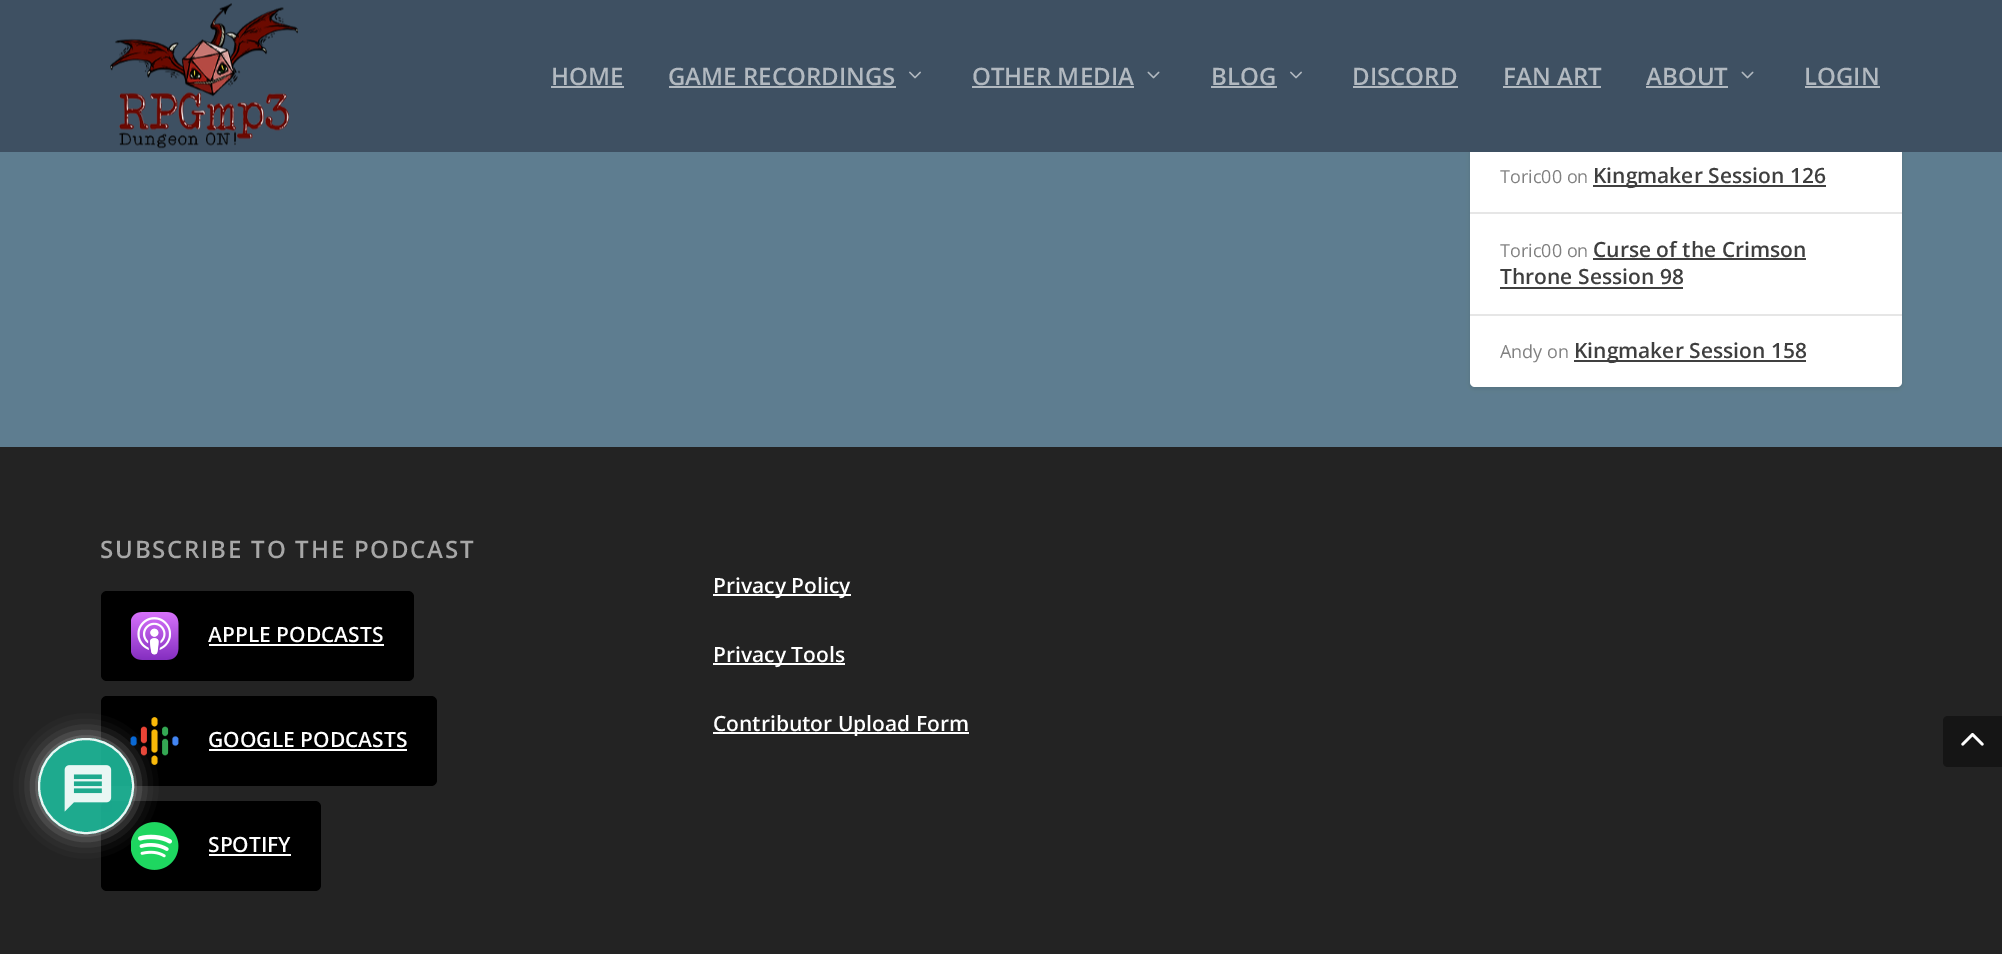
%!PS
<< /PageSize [2002 954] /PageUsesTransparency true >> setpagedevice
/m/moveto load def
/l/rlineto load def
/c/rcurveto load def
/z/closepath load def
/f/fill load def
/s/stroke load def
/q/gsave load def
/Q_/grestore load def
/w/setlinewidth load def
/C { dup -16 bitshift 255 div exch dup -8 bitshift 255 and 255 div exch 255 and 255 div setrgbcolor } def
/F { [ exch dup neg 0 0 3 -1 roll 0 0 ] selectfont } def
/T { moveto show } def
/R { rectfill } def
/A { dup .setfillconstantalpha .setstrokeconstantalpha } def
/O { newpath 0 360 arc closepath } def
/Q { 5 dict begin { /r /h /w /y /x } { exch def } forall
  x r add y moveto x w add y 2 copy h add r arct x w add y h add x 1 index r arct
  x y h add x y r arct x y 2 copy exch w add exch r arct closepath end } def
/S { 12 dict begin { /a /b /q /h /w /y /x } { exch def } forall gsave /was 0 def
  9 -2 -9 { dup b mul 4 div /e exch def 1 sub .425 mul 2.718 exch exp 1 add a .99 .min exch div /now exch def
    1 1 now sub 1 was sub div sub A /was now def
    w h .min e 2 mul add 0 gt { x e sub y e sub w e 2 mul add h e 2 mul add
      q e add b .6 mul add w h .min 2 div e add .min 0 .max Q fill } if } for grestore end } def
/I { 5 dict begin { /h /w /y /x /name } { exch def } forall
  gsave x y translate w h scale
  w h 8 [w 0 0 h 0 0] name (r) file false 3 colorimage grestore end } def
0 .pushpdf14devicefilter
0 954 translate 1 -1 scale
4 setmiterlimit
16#5E7D90 C
0 0 2002 954 R
16#232323 C
0 447 2002 507 R
16#000000 C
101 696 336 90 6 Q f
(6.rgb) 130 717 49 48 I
101 801 220 90 6 Q f
(7.rgb) 131 822 48 48 I
q
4 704 m 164 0 l 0 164 l -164 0 l z 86 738 m 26.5 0 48 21.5 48 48 c 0 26.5 -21.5 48 -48 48 c -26.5 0 -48 -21.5 -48 -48 c 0 -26.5 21.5 -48 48 -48 c z eoclip newpath
16#AAAAAA C
38 738 96 96 48 11 .9 S
Q_
0.9 A
16#1DB99A C
86 786 48 O f
16#FFFFFF C
2 w
86 786 47 O s
1 A
(1.rgb) 64 765 48 47 I
16#000000 C
1470 -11 432 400 5 2 .1 S
16#FFFFFF C
1470 -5 432 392 5 Q f
16#3E5062 C
0 0 2002 152 R
(2.rgb) 110 3 188 146 I
/OpenSans-SemiBold 24 F
16#B2B9C0 C
(HOME) 551 85 T
551 86 73 2 R
(GAME RECORDINGS) 668 85 T
669 86 227 2 R
(3.rgb) 909 71 12 8 I
(OTHER MEDIA) 972 85 T
972 86 162 2 R
(4.rgb) 1147 71 13 8 I
(BLOG) 1211 85 T
1211 86 66 2 R
(3.rgb) 1290 71 12 8 I
(DISCORD) 1352 85 T
1353 86 105 2 R
(FAN ART) 1503 85 T
1503 86 98 2 R
(ABOUT) 1646 85 T
1646 86 82 2 R
(4.rgb) 1741 71 13 8 I
(LOGIN) 1804 85 T
1805 86 75 2 R
16#E6E6E6 C
1470 212 432 2 R
/OpenSans-Regular 18 F
16#808080 C
(Toric00 on) 1500 183 T
16#404040 C
1593 185 233 2 R
/OpenSans-SemiBold 21 F
16#3F3F3F C
(Kingmaker Session 126) 1593 183 T
16#E6E6E6 C
1470 314 432 2 R
/OpenSans-Regular 18 F
16#808080 C
(Toric00 on) 1500 257 T
/OpenSans-SemiBold 21 F
16#3F3F3F C
(Curse of the Crimson) 1593 257 T
16#404040 C
1593 258 213 2 R
16#3F3F3F C
(Throne Session 98) 1500 284 T
16#404040 C
1500 287 183 2 R
/OpenSans-Regular 18 F
16#808080 C
(Andy on) 1500 358 T
16#404040 C
1574 360 232 2 R
/OpenSans-SemiBold 21 F
16#3F3F3F C
(Kingmaker Session 158) 1574 358 T
/OpenSans-SemiBold 24 F
16#A7A7A7 C
100 558 m 1.8 0 (SUBSCRIBE TO THE PODCAST) ashow
16#000000 C
101 591 313 90 6 Q f
(5.rgb) 131 612 48 48 I
/OpenSans-SemiBold 21 F
16#FFFFFF C
(APPLE PODCASTS) 208 642 T
209 644 175 2 R
(GOOGLE PODCASTS) 208 747 T
209 749 198 2 R
(SPOTIFY) 208 852 T
209 854 82 2 R
713 594 138 2 R
(Privacy Policy) 713 593 T
713 663 132 2 R
(Privacy Tools) 713 662 T
713 732 256 2 R
(Contributor Upload Form) 713 731 T
16#151515 C
1948 716 m 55 0 l 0 51 l -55 0 l -3 0 -5 -2 -5 -5 c 0 -41 l 0 -3 2 -5 5 -5 c z f
(8.rgb) 1961 733 23 13 I
.poppdf14devicefilter showpage
